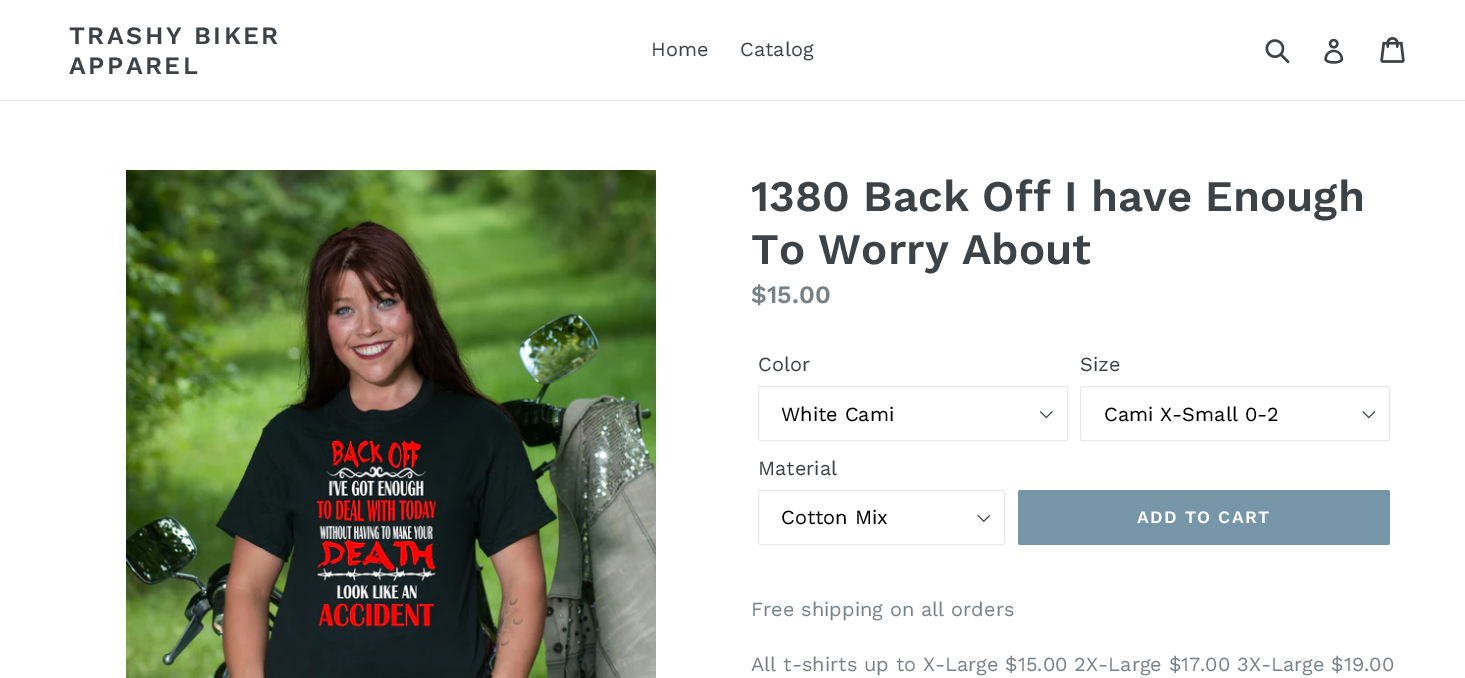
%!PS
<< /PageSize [1465 678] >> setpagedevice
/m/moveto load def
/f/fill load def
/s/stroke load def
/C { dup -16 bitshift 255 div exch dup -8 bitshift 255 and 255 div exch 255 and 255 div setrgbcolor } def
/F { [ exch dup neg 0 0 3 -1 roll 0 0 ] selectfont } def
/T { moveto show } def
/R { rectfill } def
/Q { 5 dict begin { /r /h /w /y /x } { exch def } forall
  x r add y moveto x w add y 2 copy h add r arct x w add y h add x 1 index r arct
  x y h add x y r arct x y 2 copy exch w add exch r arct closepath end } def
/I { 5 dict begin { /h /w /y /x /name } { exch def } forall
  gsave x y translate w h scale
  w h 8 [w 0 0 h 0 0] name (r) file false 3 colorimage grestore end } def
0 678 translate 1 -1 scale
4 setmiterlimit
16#FFFFFF C
0 0 1465 678 R
16#E8E9EB C
0 100 1465 1 R
/WorkSans-SemiBold 25 F
16#3D4246 C
69 44 m 2.5 0 (TRASHY BIKER) ashow
69 74 m 2.5 0 (APPAREL) ashow
/WorkSans-Regular 20 F
(Home) 651 56 T
(Catalog) 740 56 T
(1.rgb) 1265 39 25 25 I
(2.rgb) 1324 39 20 25 I
(3.rgb) 1380 37 25 26 I
(4.rgb) 126 170 530 508 I
/WorkSans-SemiBold 43.75 F
(1380 Back Off I have Enough) 751 211 T
(To Worry About) 751 264 T
/WorkSans-SemiBold 25 F
16#788188 C
($15.00) 751 303 T
/WorkSans-Regular 20 F
16#3D4246 C
(Color) 758 371 T
(5.rgb) 1039 411 14 8 I
16#E8E9EB C
758.5 386.5 309 54 2 Q s
16#000000 C
(White Cami) 781 421 T
16#3D4246 C
(Size) 1080 371 T
(6.rgb) 1362 411 14 8 I
16#E8E9EB C
1080.5 386.5 309 54 2 Q s
16#000000 C
(Cami X-Small 0-2) 1104 421 T
16#3D4246 C
(Material) 758 475 T
(7.rgb) 977 514 14 9 I
16#E8E9EB C
758.5 490.5 246 54 2 Q s
16#000000 C
(Cotton Mix) 781 524 T
16#7796A8 C
1018 490 372 55 2.5 Q f
/WorkSans-SemiBold 17.5 F
16#FFFFFF C
1137 523 m 1.4 0 (ADD TO CART) ashow
/WorkSans-Regular 20 F
16#788188 C
(Free shipping on all orders) 751 616 T
(All t-shirts up to X-Large $15.00 2X-Large $17.00 3X-Large $19.00) 751 671 T
showpage
